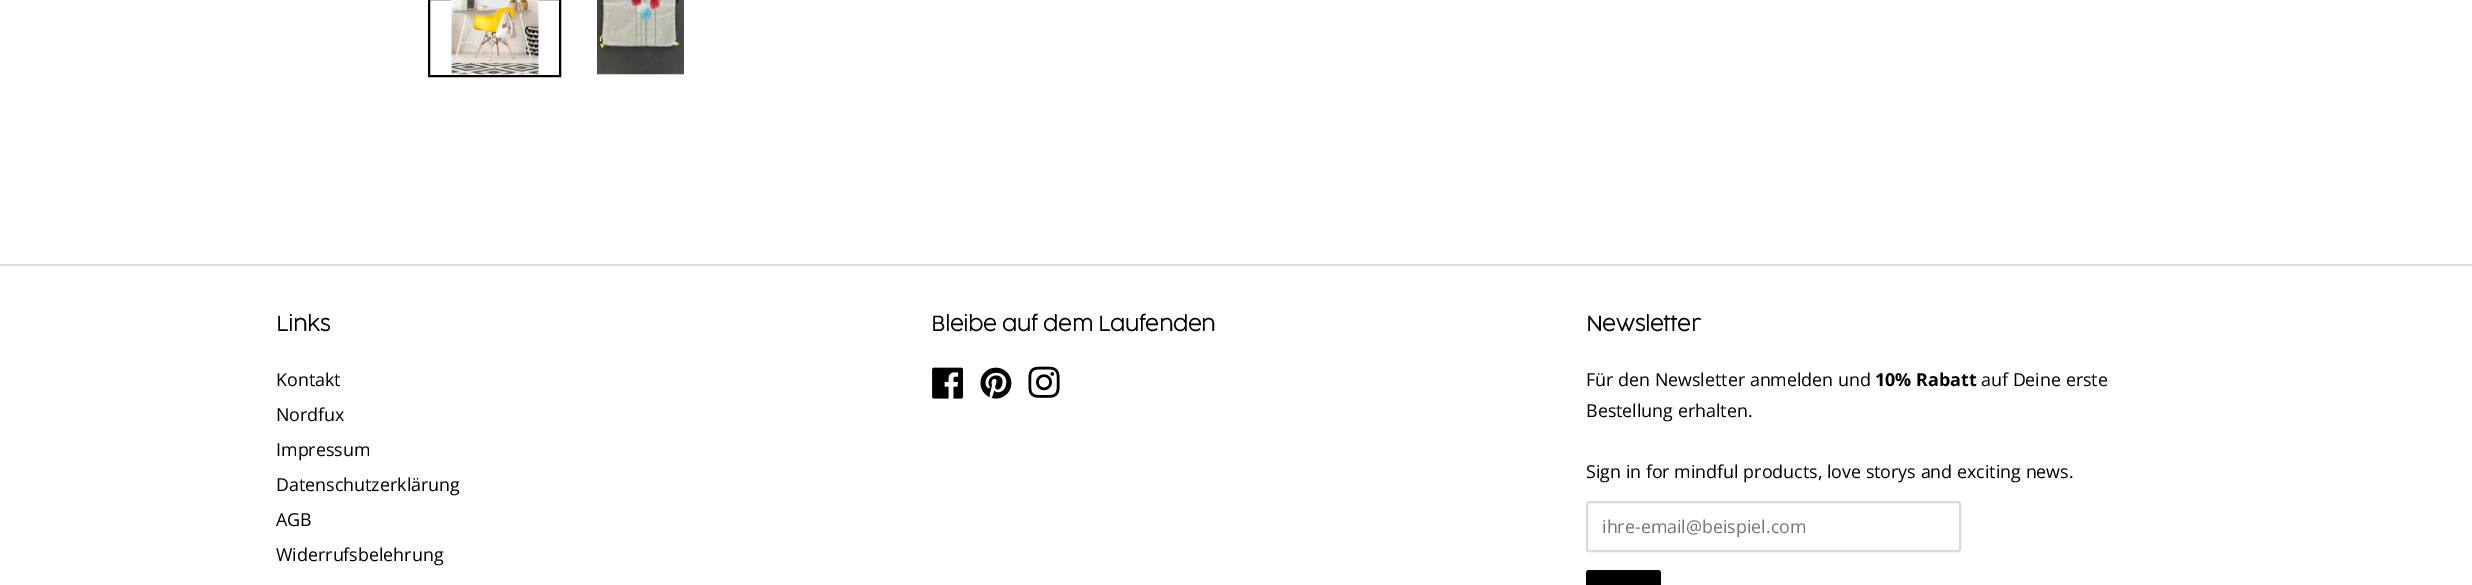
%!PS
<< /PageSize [2472 585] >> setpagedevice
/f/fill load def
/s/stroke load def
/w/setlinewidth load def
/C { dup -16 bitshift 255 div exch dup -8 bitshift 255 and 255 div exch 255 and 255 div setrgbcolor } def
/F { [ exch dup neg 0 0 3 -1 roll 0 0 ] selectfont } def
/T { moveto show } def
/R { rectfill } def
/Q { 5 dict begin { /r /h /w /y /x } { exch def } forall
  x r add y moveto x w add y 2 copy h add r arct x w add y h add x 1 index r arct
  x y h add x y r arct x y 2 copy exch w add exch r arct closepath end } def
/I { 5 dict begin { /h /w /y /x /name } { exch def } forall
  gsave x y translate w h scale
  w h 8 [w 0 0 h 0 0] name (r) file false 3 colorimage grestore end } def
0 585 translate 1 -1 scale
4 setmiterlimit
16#FFFFFF C
0 0 2472 585 R
16#000000 C
2 w
429 -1 131 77 rectstroke
(1.rgb) 451 0 88 75 I
(2.rgb) 597 0 87 75 I
16#DDDDDD C
0 264 2472 2 R
/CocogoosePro-Bold 19.5 F
16#000000 C
(Links) 276 331 T
/OpenSans-Regular 17.85 F
(Kontakt) 276 386 T
(Nordfux) 276 421 T
(Impressum) 276 456 T
(Datenschutzerklärung) 276 491 T
(AGB) 276 526 T
(Widerrufsbelehrung) 276 561 T
/CocogoosePro-Bold 19.5 F
(Bleibe auf dem Laufenden) 931 331 T
(3.rgb) 932 367 31 32 I
(4.rgb) 980 367 32 32 I
(5.rgb) 1028 366 32 32 I
(Newsletter) 1586 331 T
/OpenSans-Regular 17.85 F
(Für den Newsletter anmelden und) 1586 386 T
/OpenSans-Bold 17.85 F
(10% Rabatt) 1875 386 T
/OpenSans-Regular 17.85 F
(auf Deine erste) 1981 386 T
(Bestellung erhalten.) 1586 417 T
(Sign in for mindful products, love storys and exciting news.) 1586 478 T
16#D9D9D9 C
1587 502 373 49 2 Q s
16#757575 C
(ihre-email@beispiel.com) 1602 533 T
16#000000 C
1586 570 75 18 3 Q f
showpage
